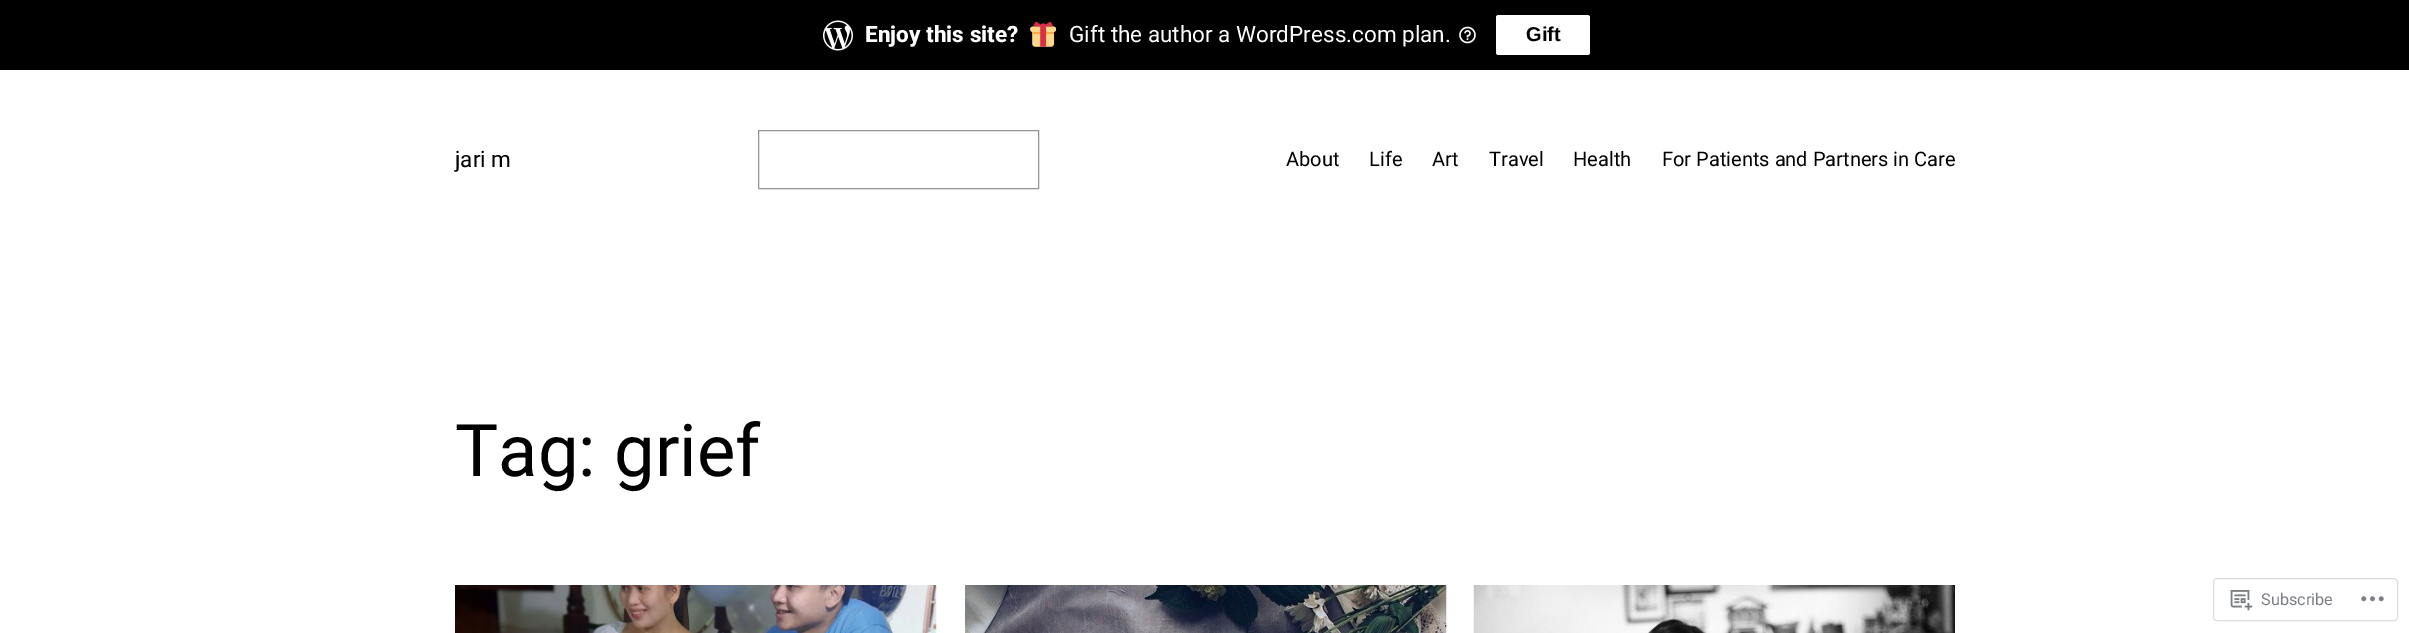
%!PS
<< /PageSize [2409 633] >> setpagedevice
/f/fill load def
/s/stroke load def
/C { dup -16 bitshift 255 div exch dup -8 bitshift 255 and 255 div exch 255 and 255 div setrgbcolor } def
/F { [ exch dup neg 0 0 3 -1 roll 0 0 ] selectfont } def
/T { moveto show } def
/R { rectfill } def
/Q { 5 dict begin { /r /h /w /y /x } { exch def } forall
  x r add y moveto x w add y 2 copy h add r arct x w add y h add x 1 index r arct
  x y h add x y r arct x y 2 copy exch w add exch r arct closepath end } def
/I { 5 dict begin { /h /w /y /x /name } { exch def } forall
  gsave x y translate w h scale
  w h 8 [w 0 0 h 0 0] name (r) file false 3 colorimage grestore end } def
0 633 translate 1 -1 scale
4 setmiterlimit
16#FFFFFF C
0 0 2409 633 R
16#000000 C
0 0 2409 70 R
(1.rgb) 823 20 30 31 I
/Roboto-ExtraBold 22.5 F
16#FFFFFF C
(Enjoy this site?) 865 42 T
(2.rgb) 1030 21 26 26 I
/Roboto-Regular 22.5 F
(Gift the author a WordPress.com plan.) 1069 42 T
(3.rgb) 1459 26 17 18 I
1496 15 94 40 2.5 Q f
/LiberationSans-Bold 20 F
16#000000 C
(Gift) 1526 41 T
/Roboto-Regular 22.5 F
(jari m) 455 167 T
16#949494 C
758.5 130.5 280 58 rectstroke
/Roboto-Regular 20 F
16#000000 C
(About) 1286 166 T
(Life) 1369 166 T
(Art) 1432 166 T
(Travel) 1489 166 T
(Health) 1573 166 T
(For Patients and Partners in Care) 1662 166 T
/Roboto-Regular 72.5 F
(Tag: grief) 455 476 T
(4.rgb) 455 585 482 48 I
(5.rgb) 965 585 482 48 I
(6.rgb) 1473 585 482 48 I
16#DDDDDF C
2213.5 578.5 184 42 3.5 Q s
(7.rgb) 2230 590 23 21 I
/Roboto-Regular 16.25 F
16#7B7F85 C
(Subscribe) 2261 605 T
(8.rgb) 2361 596 23 6 I
showpage
